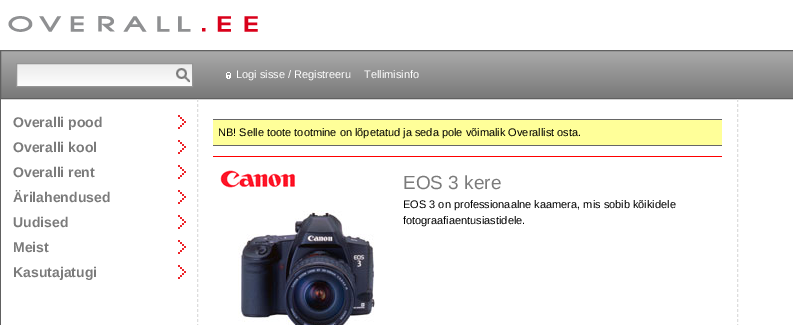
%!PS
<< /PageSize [793 325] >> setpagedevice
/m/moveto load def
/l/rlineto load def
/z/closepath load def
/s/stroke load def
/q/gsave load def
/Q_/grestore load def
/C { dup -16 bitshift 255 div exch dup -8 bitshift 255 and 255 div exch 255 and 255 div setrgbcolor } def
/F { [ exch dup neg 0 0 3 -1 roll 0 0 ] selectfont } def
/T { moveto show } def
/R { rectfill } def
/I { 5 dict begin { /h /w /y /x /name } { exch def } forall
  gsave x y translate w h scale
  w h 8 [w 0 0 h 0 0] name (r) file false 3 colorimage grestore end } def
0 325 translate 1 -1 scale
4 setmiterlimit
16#FFFFFF C
0 0 793 325 R
(1.rgb) 8 16 250 16 I
q 1 51 m 792 0 l 0 47 l -792 0 l z clip newpath
<< /ShadingType 2 /ColorSpace /DeviceRGB /Coords [508 51 508 98] /Extend [true true] /Function << /FunctionType 2 /Domain [0 1] /C0 [.667 .667 .667] /C1 [.475 .475 .475] /N 1 >> >> shfill Q_
16#606060 C
.5 50.5 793 48 rectstroke
q 17 64 m 175 0 l 0 22 l -175 0 l z clip newpath
<< /ShadingType 2 /ColorSpace /DeviceRGB /Coords [105 64 105 86] /Extend [true true] /Function << /FunctionType 2 /Domain [0 1] /C0 [.922 .922 .922] /C1 [.992 .992 .992] /N 1 >> >> shfill Q_
16#959595 C
16.5 63.5 176 23 rectstroke
(2.rgb) 176 68 14 15 I
(3.rgb) 226 72 5 7 I
/LiberationSans-Regular 11 F
16#FFFFFF C
(Logi sisse / Registreeru) 236 78 T
(Tellimisinfo) 364 78 T
16#DDDDDD C
[3 2] 0 setdash
197.5 99 m 0 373 l s
16#606060 C
0 99 1 226 R
(4.rgb) 178 115 8 14 I
/LiberationSans-Bold 14 F
16#7B7B7B C
(Overalli pood) 13 127 T
(4.rgb) 178 140 8 14 I
(Overalli kool) 13 152 T
(4.rgb) 178 165 8 14 I
(Overalli rent) 13 177 T
(4.rgb) 178 190 8 14 I
(Ärilahendused) 13 202 T
(4.rgb) 178 215 8 14 I
(Uudised) 13 227 T
(4.rgb) 178 240 8 14 I
(Meist) 13 252 T
(4.rgb) 178 265 8 14 I
(Kasutajatugi) 13 277 T
16#DDDDDD C
737.5 99 m 0 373 l s
16#FFFF99 C
213 120 509 25 R
16#666666 C
213 119 509 1 R
213 145 509 1 R
/LiberationSans-Regular 11 F
16#000000 C
(NB! Selle toote tootmine on lõpetatud ja seda pole võimalik Overallist osta.) 218 136 T
16#FF0000 C
213 156 509 1 R
(5.rgb) 220 170 76 18 I
(6.rgb) 238 210 137 115 I
/LiberationSans-Regular 19 F
16#7B7B7B C
(EOS 3 kere) 403 189 T
/LiberationSans-Regular 11 F
16#000000 C
(EOS 3 on professionaalne kaamera, mis sobib kõikidele) 403 208 T
(fotograafiaentusiastidele.) 403 224 T
showpage
